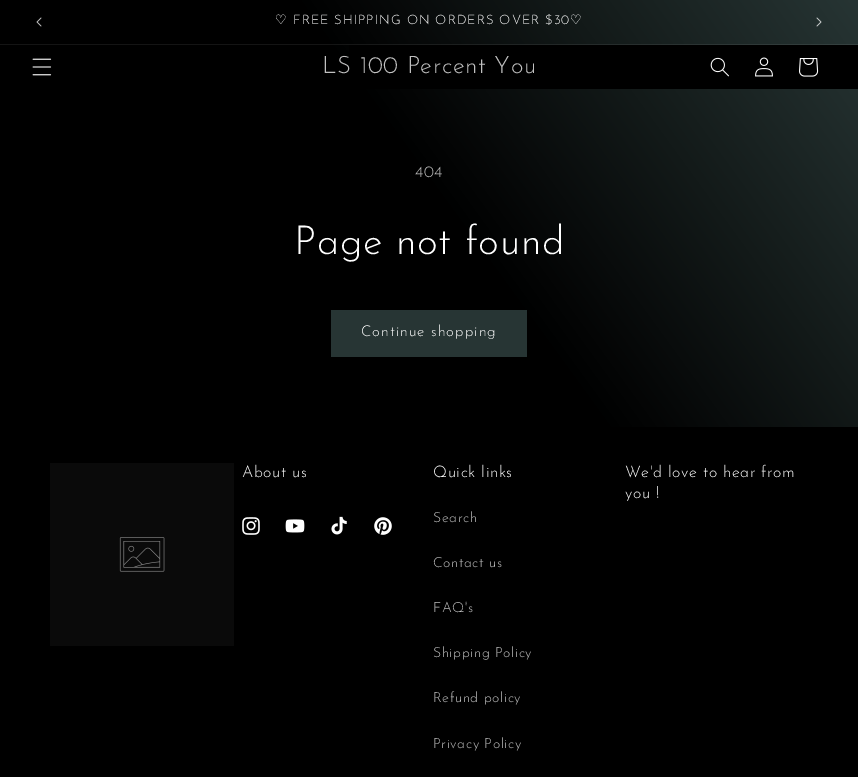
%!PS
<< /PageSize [858 777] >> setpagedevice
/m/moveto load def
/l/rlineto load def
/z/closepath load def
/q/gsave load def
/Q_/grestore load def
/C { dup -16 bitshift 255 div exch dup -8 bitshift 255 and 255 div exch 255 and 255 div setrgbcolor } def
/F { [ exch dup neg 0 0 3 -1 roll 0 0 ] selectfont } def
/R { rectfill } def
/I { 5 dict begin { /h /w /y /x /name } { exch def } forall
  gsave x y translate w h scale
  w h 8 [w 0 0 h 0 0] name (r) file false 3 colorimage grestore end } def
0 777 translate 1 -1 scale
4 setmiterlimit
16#FFFFFF C
0 0 858 777 R
q 0 0 m 858 0 l 0 427 l -858 0 l z clip newpath
<< /ShadingType 2 /ColorSpace /DeviceRGB /Coords [-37 727 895 50] /Extend [true true] /Function << /FunctionType 3 /Domain [0 1] /Functions [<< /FunctionType 2 /Domain [0 1] /C0 [0 0 0] /C1 [0 0 0] /N 1 >> << /FunctionType 2 /Domain [0 1] /C0 [0 0 0] /C1 [.153 .208 .204] /N 1 >>] /Bounds [.6] /Encode [0 1 0 1] >> >> shfill Q_
q 0 44 m 858 0 l 0 1 l -858 0 l z clip newpath
<< /ShadingType 2 /ColorSpace /DeviceRGB /Coords [-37 727 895 50] /Extend [true true] /Function << /FunctionType 3 /Domain [0 1] /Functions [<< /FunctionType 2 /Domain [0 1] /C0 [.078 .078 .078] /C1 [.078 .078 .078] /N 1 >> << /FunctionType 2 /Domain [0 1] /C0 [.078 .078 .078] /C1 [.22 .271 .267] /N 1 >>] /Bounds [.6] /Encode [0 1 0 1] >> >> shfill Q_
(1.rgb) 36 17 6 10 I
/DejaVuSans-Regular 13 F
275 24 m 1 0 (♡) ashow
/JosefinSans-Light 13 F
293 24 m 1 0 (FREE SHIPPING ON ORDERS OVER $30) ashow
/DejaVuSans-Regular 13 F
570 24 m 1 0 (♡) ashow
(2.rgb) 816 17 6 10 I
16#000000 C
349 45 509 44 R
(3.rgb) 32 58 20 18 I
/JosefinSans-Light 24 F
16#C0C0C0 C
322 73 m .6 0 (LS 100 Percent You) ashow
(4.rgb) 710 57 19 20 I
(5.rgb) 755 57 18 20 I
(6.rgb) 799 58 20 19 I
/JosefinSans-Light 16 F
415 177 m .6 0 (404) ashow
/JosefinSans-Light 40 F
16#FFFFFF C
294 254 m .6 0 (Page not found) ashow
16#273534 C
331 310 196 47 R
/JosefinSans-Light 15 F
16#FFFFFF C
361 336 m 1 0 (Continue shopping) ashow
16#000000 C
0 427 858 350 R
16#0A0A0A C
50 463 184 183 R
(7.rgb) 119 537 46 35 I
/JosefinSans-Light 16 F
16#FFFFFF C
242 477 m .6 0 (About us) ashow
(8.rgb) 242 517 18 18 I
(9.rgb) 285 519 20 14 I
(10.rgb) 331 516 16 19 I
(11.rgb) 374 517 18 18 I
433 477 m .6 0 (Quick links) ashow
/JosefinSans-Light 14 F
16#C0C0C0 C
433 522 m .6 0 (Search) ashow
433 567 m .6 0 (Contact us) ashow
433 612 m .6 0 (FAQ's) ashow
433 657 m .6 0 (Shipping Policy) ashow
433 702 m .6 0 (Refund policy) ashow
433 748 m .6 0 (Privacy Policy) ashow
/JosefinSans-Light 16 F
16#FFFFFF C
625 477 m .6 0 (We'd love to hear from) ashow
625 498 m .6 0 (you !) ashow
showpage
